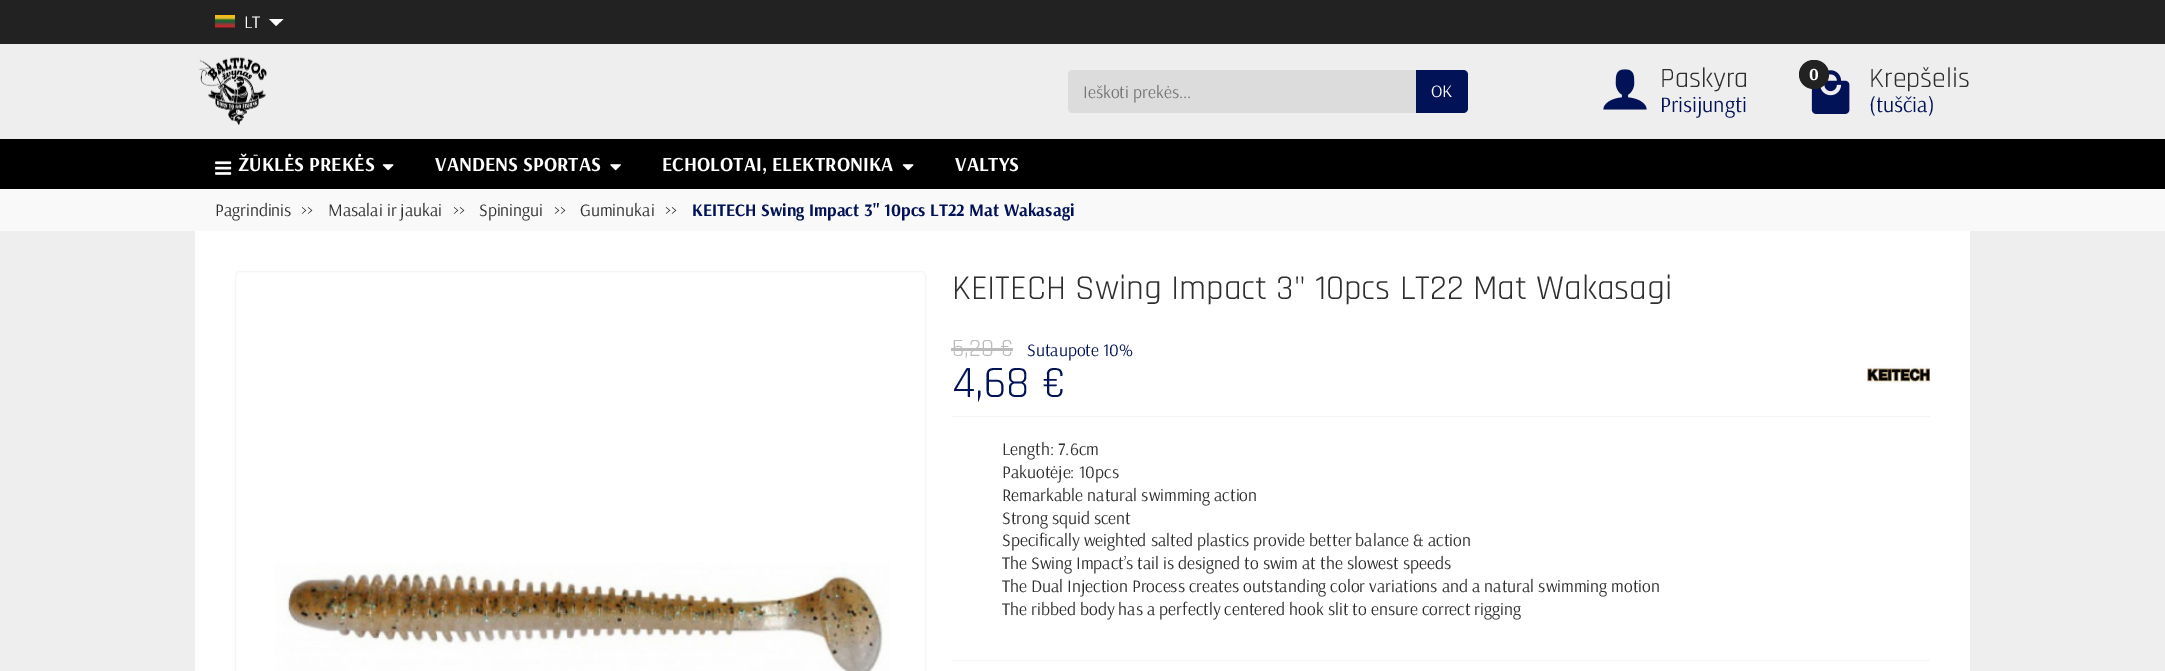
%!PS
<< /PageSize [2165 671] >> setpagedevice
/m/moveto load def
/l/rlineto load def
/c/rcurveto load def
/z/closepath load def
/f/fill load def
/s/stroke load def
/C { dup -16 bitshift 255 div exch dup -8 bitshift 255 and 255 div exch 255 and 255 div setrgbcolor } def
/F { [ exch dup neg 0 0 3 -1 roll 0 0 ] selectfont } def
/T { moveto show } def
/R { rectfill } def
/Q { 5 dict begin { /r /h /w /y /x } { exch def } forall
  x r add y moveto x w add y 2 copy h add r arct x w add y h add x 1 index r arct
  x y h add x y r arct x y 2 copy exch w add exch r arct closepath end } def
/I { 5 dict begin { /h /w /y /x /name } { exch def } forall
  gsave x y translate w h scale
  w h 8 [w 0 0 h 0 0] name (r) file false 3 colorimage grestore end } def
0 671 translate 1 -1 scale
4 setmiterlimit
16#EEEEEE C
0 0 2165 671 R
16#222222 C
0 0 2165 44 R
(1.rgb) 215 15 20 13 I
/Arsenal-Regular 17.5 F
16#FFFFFF C
(LT) 244 28 T
269 19 m 14.5 0 l -7.5 7 l z f
(2.rgb) 198 57 69 68 I
16#DCDCDC C
1073 70 m 343 0 l 0 43 l -343 0 l -3 0 -5 -2 -5 -5 c 0 -33 l 0 -3 2 -5 5 -5 c z f
16#757575 C
(Ieškoti prekės...) 1083 98 T
16#011257 C
1416 70 m 47 0 l 3 0 5 2 5 5 c 0 33 l 0 3 -2 5 -5 5 c -47 0 l z f
16#FFFFFF C
(OK) 1431 97 T
(3.rgb) 1603 69 44 41 I
/Rajdhani-Regular 28 F
16#2E2E2E C
(Paskyra) 1660 87 T
/Arsenal-Regular 22 F
16#011257 C
(Prisijungti) 1660 112 T
(4.rgb) 1811 70 39 44 I
16#222222 C
1799 60 30 29 14.5 Q f
/Arsenal-Bold 17 F
16#FFFFFF C
(0) 1809 80 T
/Rajdhani-Regular 28 F
16#2E2E2E C
(Krepšelis) 1869 87 T
/Arsenal-Regular 22 F
16#011257 C
(\(tuščia\)) 1869 112 T
16#000000 C
0 139 2165 50 R
(5.rgb) 215 161 17 14 I
/Arsenal-Bold 20 F
16#FFFFFF C
(ŽŪKLĖS PREKĖS) 238 171 T
(6.rgb) 382 164 12 7 I
(VANDENS SPORTAS) 435 171 T
(7.rgb) 610 164 11 7 I
(ECHOLOTAI, ELEKTRONIKA) 662 171 T
(6.rgb) 902 164 12 7 I
(VALTYS) 955 171 T
16#F9F9F9 C
0 189 2165 42 R
/Arsenal-Regular 17.5 F
16#2E2E2E C
(Pagrindinis) 215 216 T
(>>) 301 216 T
(Masalai ir jaukai) 328 216 T
(>>) 453 216 T
(Spiningui) 479 216 T
(>>) 554 216 T
(Guminukai) 580 216 T
(>>) 665 216 T
/Arsenal-Bold 17.5 F
16#011257 C
(KEITECH Swing Impact 3" 10pcs LT22 Mat Wakasagi) 692 216 T
16#FFFFFF C
195 231 1775 440 R
16#F5F5F5 C
235.5 271.5 690 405 4.5 Q s
(8.rgb) 275 562 615 109 I
/Rajdhani-Regular 35 F
16#2E2E2E C
(KEITECH Swing Impact 3" 10pcs LT22 Mat Wakasagi) 952 299 T
/Rajdhani-Regular 25 F
16#BBBBBB C
(5,20 €) 952 356 T
951 348 62 3 R
/Arsenal-Regular 17.5 F
16#011257 C
(Sutaupote 10%) 1027 356 T
/Rajdhani-Regular 45 F
(4,68 €) 952 397 T
(9.rgb) 1867 364 63 20 I
16#F5F5F5 C
951 416 979 1 R
951 660 979 1 R
/Arsenal-Regular 17.5 F
16#2E2E2E C
(Length: 7.6cm) 1002 455 T
(Pakuotėje: 10pcs) 1002 478 T
(Remarkable natural swimming action) 1002 501 T
(Strong squid scent) 1002 524 T
(Specifically weighted salted plastics provide better balance & action) 1002 546 T
(The Swing Impact’s tail is designed to swim at the slowest speeds) 1002 569 T
(The Dual Injection Process creates outstanding color variations and a natural swimming motion) 1002 592 T
(The ribbed body has a perfectly centered hook slit to ensure correct rigging) 1002 615 T
showpage
